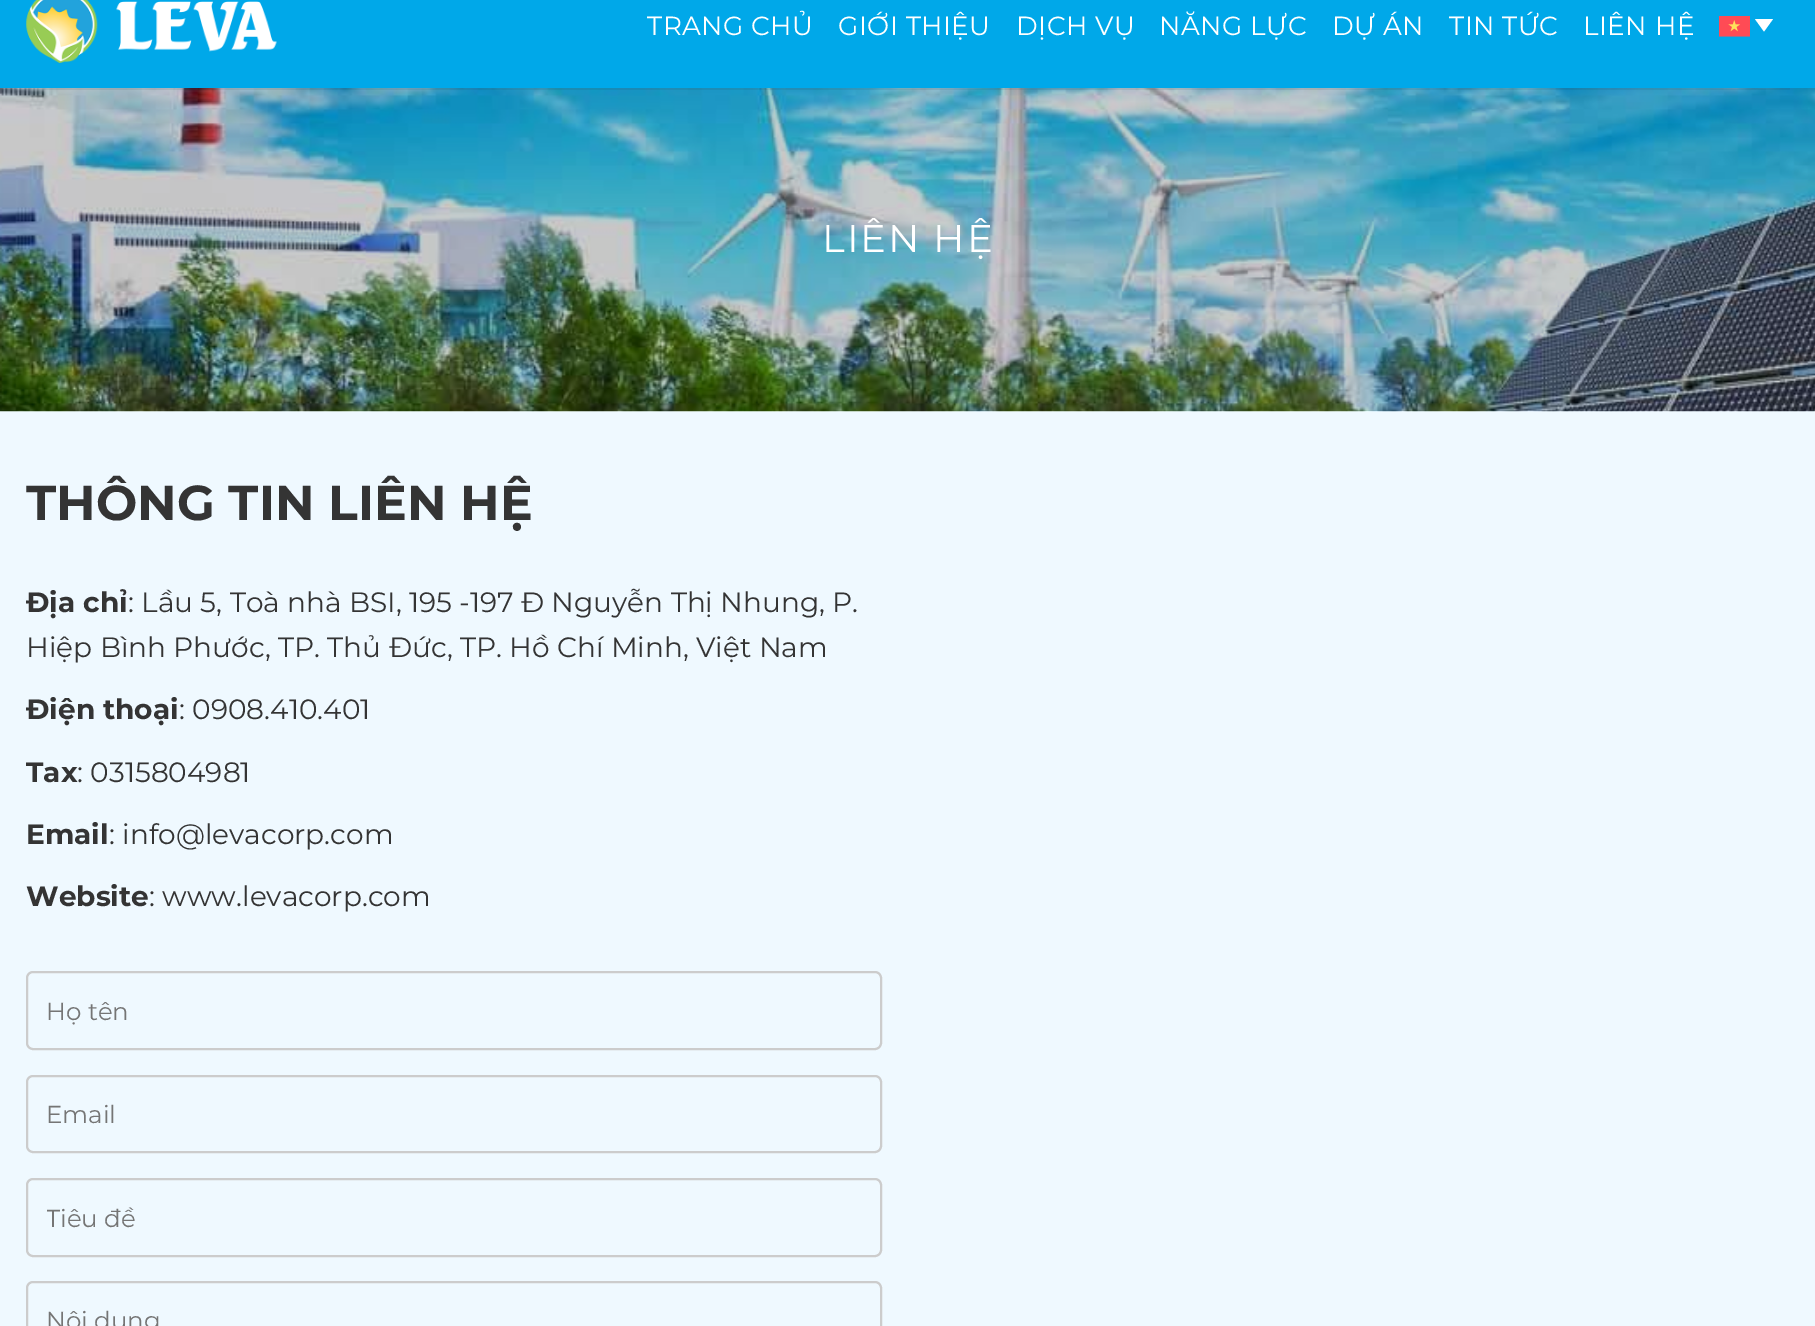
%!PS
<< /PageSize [1815 1326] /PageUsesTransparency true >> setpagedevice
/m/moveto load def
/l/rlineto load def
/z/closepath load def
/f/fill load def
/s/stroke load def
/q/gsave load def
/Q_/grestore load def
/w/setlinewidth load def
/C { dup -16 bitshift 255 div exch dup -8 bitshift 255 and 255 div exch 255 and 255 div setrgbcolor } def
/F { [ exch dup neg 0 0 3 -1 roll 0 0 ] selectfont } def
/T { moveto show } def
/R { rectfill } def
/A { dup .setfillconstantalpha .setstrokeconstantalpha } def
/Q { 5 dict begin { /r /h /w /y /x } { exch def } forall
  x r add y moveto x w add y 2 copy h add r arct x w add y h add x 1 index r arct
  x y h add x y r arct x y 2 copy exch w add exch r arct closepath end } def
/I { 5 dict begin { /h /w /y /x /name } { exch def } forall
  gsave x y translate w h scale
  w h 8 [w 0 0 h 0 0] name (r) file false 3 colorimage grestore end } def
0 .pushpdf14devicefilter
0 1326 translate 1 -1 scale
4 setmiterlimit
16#EFF9FF C
0 0 1815 1326 R
16#00A8E9 C
0 0 1815 88 R
(1.rgb) 26 0 251 63 I
/Montserrat-Regular 26.25 F
16#FFFFFF C
647 35 m .5 0 (TRANG CHỦ) ashow
838 35 m .5 0 (GIỚI THIỆU) ashow
1016 35 m .5 0 (DỊCH VỤ) ashow
1159 35 m .5 0 (NĂNG LỰC) ashow
1332 35 m .5 0 (DỰ ÁN) ashow
1449 35 m .5 0 (TIN TỨC) ashow
1583 35 m .5 0 (LIÊN HỆ) ashow
(2.rgb) 1719 16 31 21 I
1755 19 m 18 0 l -9 12.5 l z f
(3.rgb) 0 88 1815 324 I
0.1 A
16#343434 C
26 88 1764 2 R
/Montserrat-Regular 38.5 F
1 A
16#FFFFFF C
822 252 m 2 0 (LIÊN HỆ) ashow
/Montserrat-Bold 49 F
16#343434 C
(THÔNG TIN LIÊN HỆ) 26 520 T
/Montserrat-Bold 28 F
(Địa chỉ) 26 612 T
/Montserrat-Regular 28 F
(: Lầu 5, Toà nhà BSI, 195 -197 Đ Nguyễn Thị Nhung, P.) 128 612 T
(Hiệp Bình Phước, TP. Thủ Đức, TP. Hồ Chí Minh, Việt Nam) 26 657 T
/Montserrat-Bold 28 F
(Điện thoại) 26 719 T
/Montserrat-Regular 28 F
(: 0908.410.401) 179 719 T
/Montserrat-Bold 28 F
(Tax) 26 782 T
/Montserrat-Regular 28 F
(: 0315804981) 77 782 T
/Montserrat-Bold 28 F
(Email) 26 844 T
/Montserrat-Regular 28 F
(: info@levacorp.com) 109 844 T
/Montserrat-Bold 28 F
(Website) 26 906 T
/Montserrat-Regular 28 F
(: www.levacorp.com) 149 906 T
16#CCCCCC C
2 w
27 972 854 77 6 Q s
/Montserrat-Regular 24.5 F
16#757575 C
(Họ tên) 46 1020 T
16#CCCCCC C
27 1076 854 76 6 Q s
16#757575 C
(Email) 46 1123 T
16#CCCCCC C
27 1179 854 77 6 Q s
q
47 1202 816 32 rectclip
16#757575 C
(Tiêu đề) 46 1227 T
Q_
27 1282 854 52 6 Q s
16#757575 C
(Nội dung) 46 1329 T
.poppdf14devicefilter showpage
